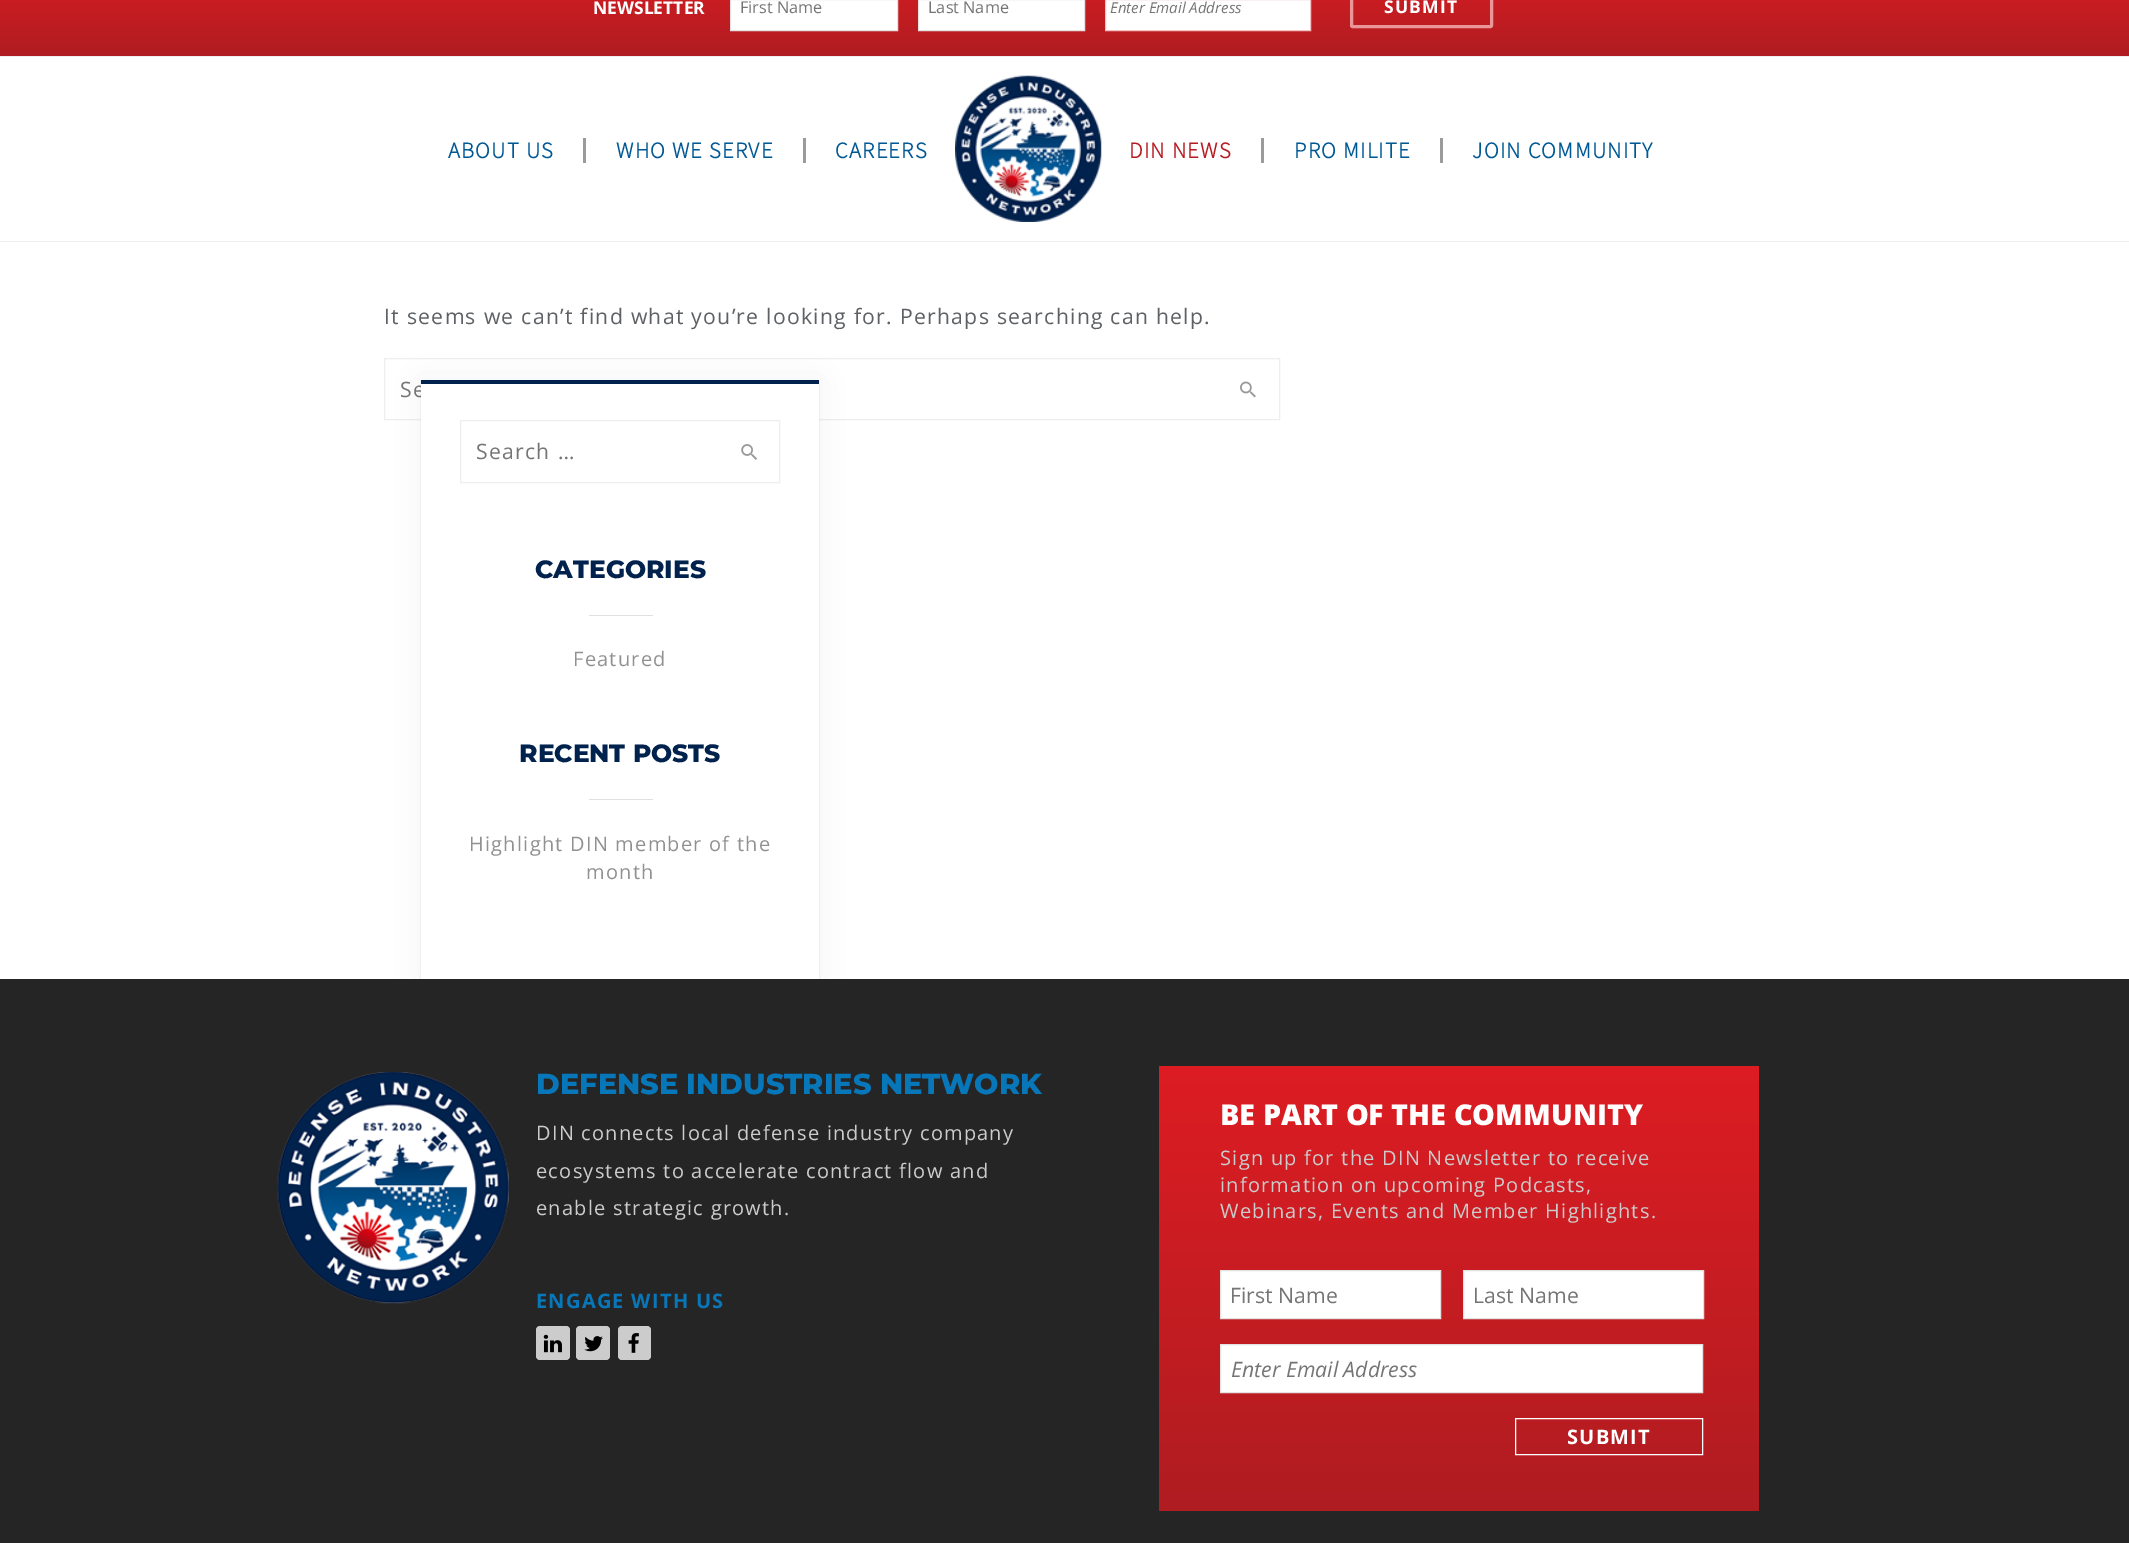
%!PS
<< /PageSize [2129 1543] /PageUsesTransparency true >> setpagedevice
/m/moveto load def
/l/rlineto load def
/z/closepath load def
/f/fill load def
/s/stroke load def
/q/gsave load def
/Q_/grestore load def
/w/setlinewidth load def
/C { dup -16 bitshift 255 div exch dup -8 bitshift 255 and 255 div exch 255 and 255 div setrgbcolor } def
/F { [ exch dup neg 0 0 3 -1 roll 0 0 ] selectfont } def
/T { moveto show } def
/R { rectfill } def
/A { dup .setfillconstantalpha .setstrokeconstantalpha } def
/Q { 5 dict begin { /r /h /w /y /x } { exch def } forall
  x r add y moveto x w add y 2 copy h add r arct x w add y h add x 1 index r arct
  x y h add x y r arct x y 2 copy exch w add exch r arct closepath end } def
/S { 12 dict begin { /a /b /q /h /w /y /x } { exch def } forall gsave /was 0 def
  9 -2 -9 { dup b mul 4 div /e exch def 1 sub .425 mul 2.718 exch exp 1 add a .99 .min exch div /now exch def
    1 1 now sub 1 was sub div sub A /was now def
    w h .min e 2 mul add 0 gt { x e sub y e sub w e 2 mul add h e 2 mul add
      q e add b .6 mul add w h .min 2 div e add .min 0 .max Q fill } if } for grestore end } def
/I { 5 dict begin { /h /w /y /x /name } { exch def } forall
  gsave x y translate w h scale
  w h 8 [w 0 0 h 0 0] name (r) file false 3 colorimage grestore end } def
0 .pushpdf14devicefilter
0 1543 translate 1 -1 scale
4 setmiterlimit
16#FFFFFF C
0 0 2129 1543 R
q 0 0 m 2129 0 l 0 56 l -2129 0 l z clip newpath
<< /ShadingType 2 /ColorSpace /DeviceRGB /Coords [1065 56 1065 -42] /Extend [true true] /Function << /FunctionType 2 /Domain [0 1] /C0 [.686 .114 .129] /C1 [.867 .11 .137] /N 1 >> >> shfill Q_
/OpenSans-Bold 17.5 F
(NEWSLETTER) 593 14 T
730.5 -.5 m 167 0 l 0 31 l -167 0 l z q f Q_
16#E2E2E2 C
s
/OpenSans-Regular 16.25 F
16#757575 C
(First Name) 740 13 T
16#FFFFFF C
918.5 -.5 m 166 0 l 0 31 l -166 0 l z q f Q_
16#E2E2E2 C
s
16#757575 C
(Last Name) 928 13 T
16#FFFFFF C
1105.5 -.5 m 205 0 l 0 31 l -205 0 l z q f Q_
16#F3C2C4 C
s
/OpenSans-Italic 15 F
16#757575 C
(Enter Email Address) 1110 13 T
16#EA9698 C
3 w
1351.5 -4.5 140 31 1 Q s
/OpenSans-Bold 17.5 F
16#FFFFFF C
1384 13 m 1.25 0 (SUBMIT) ashow
16#EFEFEE C
0 56 2129 1 R
0 241 2129 1 R
/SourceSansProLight-Bold 22.5 F
16#005894 C
448 158 m 1.25 0 (ABOUT US) ashow
16#9B9B9B C
583 138 3 25 R
16#005894 C
616 158 m 1.25 0 (WHO WE SERVE) ashow
16#9B9B9B C
803 138 3 25 R
16#005894 C
835 158 m 1.25 0 (CAREERS) ashow
(1.rgb) 955 75 147 147 I
16#B51D22 C
1129 158 m 1.25 0 (DIN NEWS) ashow
16#9B9B9B C
1261 138 3 25 R
16#005894 C
1294 158 m 1.25 0 (PRO MILITE) ashow
16#9B9B9B C
1440 138 3 25 R
16#005894 C
1472 158 m 1.25 0 (JOIN COMMUNITY) ashow
/OpenSans-Regular 21.25 F
16#5D6064 C
384 324 m 1.25 0 (It seems we can’t find what you’re looking for. Perhaps searching can help.) ashow
16#EEEEEE C
1 w
384.5 358.5 895 61 rectstroke
16#757575 C
400 397 m 1.25 0 (Se) ashow
(2.rgb) 1240 381 16 17 I
16#252525 C
0 979 2129 564 R
q
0 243 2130 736 rectclip
16#00313E C
421 381 398 599 0 15.5 .05 S
Q_
0.04 A
16#1E313E C
420.5 380.5 399 600 rectstroke
1 A
16#FFFFFF C
421 384 398 595 R
16#00224D C
421 380 398 4 R
16#EEEEEE C
460.5 420.5 319 62 rectstroke
16#757575 C
476 459 m 1.25 0 (Search …) ashow
(3.rgb) 741 444 16 16 I
/Montserrat-ExtraBold 25 F
16#00224D C
(CATEGORIES) 535 578 T
16#E0E0E0 C
589 615 64 1 R
/OpenSans-Regular 20 F
16#919191 C
573 666 m 1.25 0 (Featured) ashow
/Montserrat-ExtraBold 25 F
16#00224D C
(RECENT POSTS) 519 762 T
16#E0E0E0 C
589 799 64 1 R
/OpenSans-Regular 20 F
16#919191 C
469 851 m 1.25 0 (Highlight DIN member of the) ashow
586 879 m 1.25 0 (month) ashow
(4.rgb) 277 1072 232 232 I
/Montserrat-ExtraBold 28.75 F
16#0877B9 C
(DEFENSE INDUSTRIES NETWORK) 536 1094 T
/OpenSans-Regular 20 F
16#CCCCCC C
536 1140 m 1.25 0 (DIN connects local defense industry company) ashow
536 1178 m 1.25 0 (ecosystems to accelerate contract flow and) ashow
536 1215 m 1.25 0 (enable strategic growth.) ashow
/OpenSans-Bold 20 F
16#0877B9 C
536 1308 m 1.25 0 (ENGAGE WITH US) ashow
16#CCCCCC C
536 1326 34 34 4 Q f
(5.rgb) 543 1334 19 19 I
576 1326 34 34 4 Q f
(6.rgb) 584 1336 19 16 I
618 1326 33 34 4 Q f
(7.rgb) 628 1333 11 20 I
q 1159 1066 m 600 0 l 0 445 l -600 0 l z clip newpath
<< /ShadingType 2 /ColorSpace /DeviceRGB /Coords [1459 1511 1459 1066] /Extend [true true] /Function << /FunctionType 2 /Domain [0 1] /C0 [.686 .114 .129] /C1 [.867 .11 .137] /N 1 >> >> shfill Q_
/OpenSans-ExtraBold 28.75 F
16#FFFFFF C
(BE PART OF THE COMMUNITY) 1220 1125 T
/OpenSans-Regular 20 F
16#CCCCCC C
1220 1165 m 1.25 0 (Sign up for the DIN Newsletter to receive) ashow
1220 1192 m 1.25 0 (information on upcoming Podcasts,) ashow
1220 1218 m 1.25 0 (Webinars, Events and Member Highlights.) ashow
16#FFFFFF C
1220.5 1270.5 m 220 0 l 0 48 l -220 0 l z q f Q_
16#E2E2E2 C
s
/OpenSans-Regular 21.25 F
16#757575 C
(First Name) 1230 1303 T
16#FFFFFF C
1463.5 1270.5 m 240 0 l 0 48 l -240 0 l z q f Q_
16#E2E2E2 C
s
16#757575 C
(Last Name) 1473 1303 T
16#FFFFFF C
1220.5 1344.5 m 482 0 l 0 48 l -482 0 l z q f Q_
16#E2E2E2 C
s
/OpenSans-Italic 21.25 F
16#757575 C
(Enter Email Address) 1231 1377 T
16#FFFFFF C
1515.5 1418.5 187 36 rectstroke
/OpenSans-Bold 20 F
1567 1444 m 1.25 0 (SUBMIT) ashow
.poppdf14devicefilter showpage
